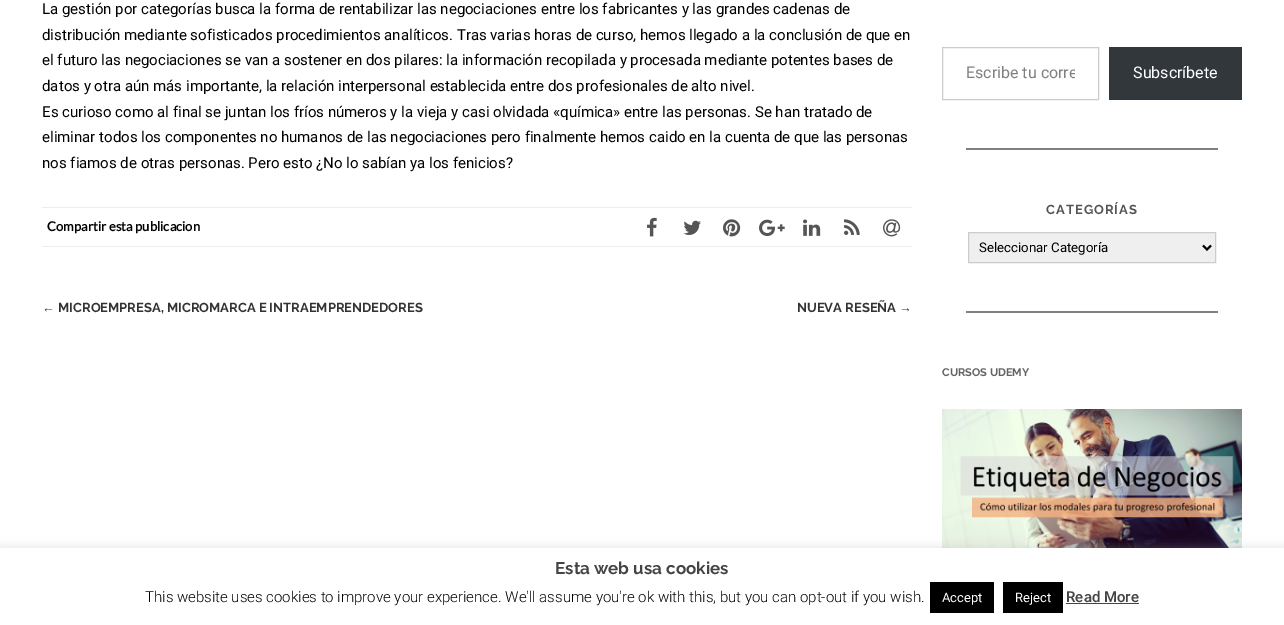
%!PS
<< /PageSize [1284 625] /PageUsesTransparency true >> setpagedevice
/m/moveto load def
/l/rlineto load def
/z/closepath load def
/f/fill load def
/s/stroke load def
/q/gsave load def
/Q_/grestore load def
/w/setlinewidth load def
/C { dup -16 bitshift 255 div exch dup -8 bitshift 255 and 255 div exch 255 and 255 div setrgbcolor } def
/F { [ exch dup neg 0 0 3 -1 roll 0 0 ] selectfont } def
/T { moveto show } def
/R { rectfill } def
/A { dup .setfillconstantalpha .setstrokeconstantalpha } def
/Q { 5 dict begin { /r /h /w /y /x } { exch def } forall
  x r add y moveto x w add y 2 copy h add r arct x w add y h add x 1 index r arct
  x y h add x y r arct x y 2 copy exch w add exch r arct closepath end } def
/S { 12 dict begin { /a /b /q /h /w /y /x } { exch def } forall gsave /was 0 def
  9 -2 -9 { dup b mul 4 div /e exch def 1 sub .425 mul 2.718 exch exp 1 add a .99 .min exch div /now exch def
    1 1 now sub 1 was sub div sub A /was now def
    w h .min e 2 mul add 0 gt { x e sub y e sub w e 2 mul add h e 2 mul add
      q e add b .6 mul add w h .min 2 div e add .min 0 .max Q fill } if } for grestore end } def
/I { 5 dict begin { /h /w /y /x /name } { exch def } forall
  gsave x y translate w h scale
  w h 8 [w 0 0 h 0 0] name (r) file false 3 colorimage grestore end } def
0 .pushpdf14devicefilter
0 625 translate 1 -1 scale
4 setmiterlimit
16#FFFFFF C
0 0 1284 625 R
/Roboto-Regular 15 F
16#000000 C
(La gestión por categorías busca la forma de rentabilizar las negociaciones entre los fabricantes y las grandes cadenas de) 42 14 T
(distribución mediante sofisticados procedimientos analíticos. Tras varias horas de curso, hemos llegado a la conclusión de que en) 42 40 T
(el futuro las negociaciones se van a sostener en dos pilares: la información recopilada y procesada mediante potentes bases de) 42 65 T
(datos y otra aún más importante, la relación interpersonal establecida entre dos profesionales de alto nivel.) 42 91 T
(Es curioso como al final se juntan los fríos números y la vieja y casi olvidada «química» entre las personas. Se han tratado de) 42 117 T
(eliminar todos los componentes no humanos de las negociaciones pero finalmente hemos caido en la cuenta de que las personas) 42 142 T
(nos fiamos de otras personas. Pero esto ¿No lo sabían ya los fenicios?) 42 168 T
16#EEEEEE C
42 207 870 1 R
42 246 870 1 R
/Lato-Bold 13 F
16#000000 C
(Compartir esta publicacion) 47 231 T
(1.rgb) 647 217 10 20 I
(2.rgb) 683 220 18 15 I
(3.rgb) 723 219 18 18 I
(4.rgb) 759 219 26 17 I
(5.rgb) 803 219 18 17 I
(6.rgb) 844 219 16 16 I
(7.rgb) 883 219 18 18 I
/LiberationSans-Bold 13 F
16#333333 C
(←) 42 312 T
/Raleway-Bold 13 F
(MICROEMPRESA, MICROMARCA E INTRAEMPRENDEDORES) 58 312 T
(NUEVA RESEÑA) 797 312 T
/LiberationSans-Bold 13 F
(→) 899 312 T
16#CCCCCC C
942.5 47.5 156 52 rectstroke
q
966 63 109 19 rectclip
/Roboto-Regular 16 F
16#808080 C
(Escribe tu corre) 966 78 T
Q_
16#32373C C
1109 47 133 53 R
/Roboto-Regular 16 F
16#FFFFFF C
(Subscríbete) 1133 78 T
16#808080 C
966 148 252 2 R
/Raleway-Bold 13 F
16#555555 C
1046 214 m 1 0 (CATEGORÍAS) ashow
16#EFEFEF C
968.5 232.5 m 247 0 l 0 30 l -247 0 l z q f Q_
16#CCCCCC C
s
16#000000 C
2 w
1203 245.5 m 4 4 l 4 -4 l s
/Roboto-Regular 13.25 F
(Seleccionar Categoría) 979 252 T
16#808080 C
966 311 252 2 R
/Raleway-Bold 11 F
16#636363 C
(CURSOS UDEMY) 942 376 T
(8.rgb) 942 409 300 139 I
16#ACABAB C
0 547 1284 77 0 5 .3 S
16#FFFFFF C
0 548 1284 77 R
/Raleway-Bold 17 F
16#444444 C
(Esta web usa cookies) 555 574 T
/Roboto-Light 15 F
16#000000 C
(This website uses cookies to improve your experience. We'll assume you're ok with this, but you can opt-out if you wish.) 145 602 T
930 582 64 31 R
/Roboto-Regular 13 F
16#FFFFFF C
(Accept) 942 602 T
16#000000 C
1003 582 60 31 R
16#FFFFFF C
(Reject) 1015 602 T
/Roboto-Medium 15 F
16#444444 C
(Read More) 1066 602 T
1066 603 73 1 R
.poppdf14devicefilter showpage
